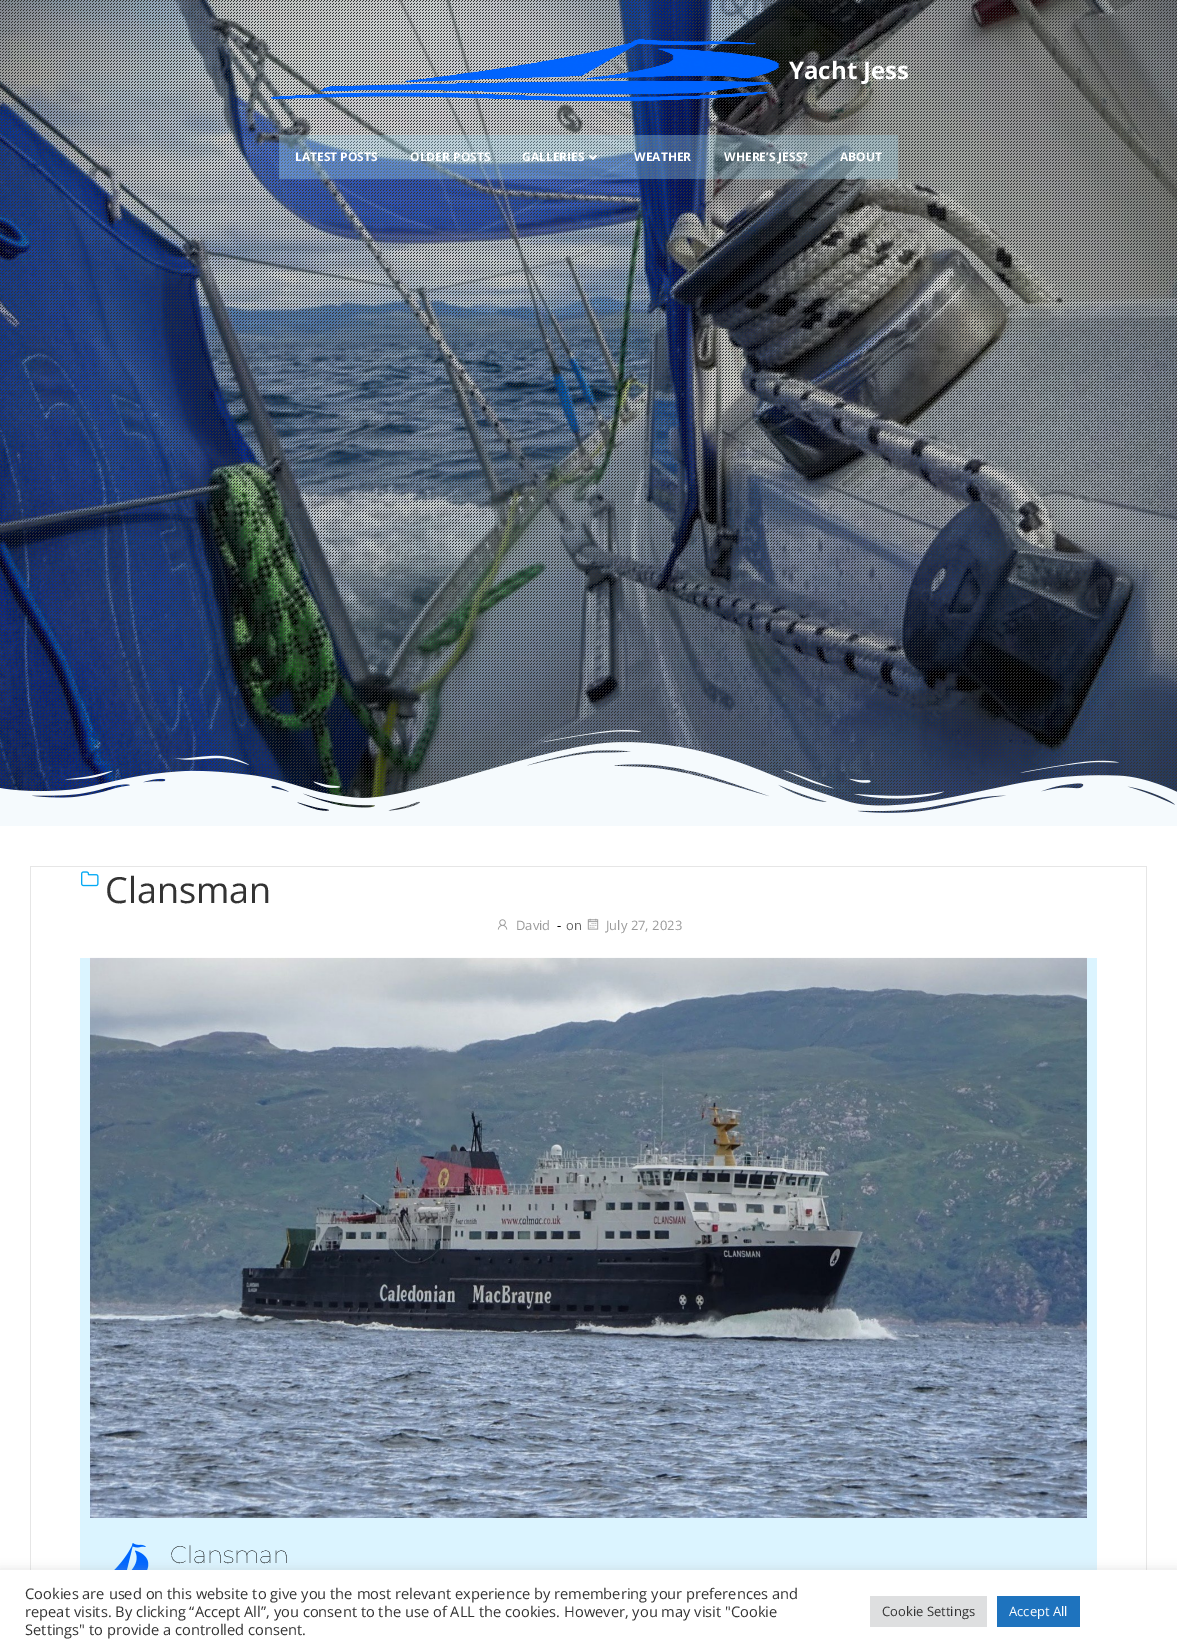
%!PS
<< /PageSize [1177 1652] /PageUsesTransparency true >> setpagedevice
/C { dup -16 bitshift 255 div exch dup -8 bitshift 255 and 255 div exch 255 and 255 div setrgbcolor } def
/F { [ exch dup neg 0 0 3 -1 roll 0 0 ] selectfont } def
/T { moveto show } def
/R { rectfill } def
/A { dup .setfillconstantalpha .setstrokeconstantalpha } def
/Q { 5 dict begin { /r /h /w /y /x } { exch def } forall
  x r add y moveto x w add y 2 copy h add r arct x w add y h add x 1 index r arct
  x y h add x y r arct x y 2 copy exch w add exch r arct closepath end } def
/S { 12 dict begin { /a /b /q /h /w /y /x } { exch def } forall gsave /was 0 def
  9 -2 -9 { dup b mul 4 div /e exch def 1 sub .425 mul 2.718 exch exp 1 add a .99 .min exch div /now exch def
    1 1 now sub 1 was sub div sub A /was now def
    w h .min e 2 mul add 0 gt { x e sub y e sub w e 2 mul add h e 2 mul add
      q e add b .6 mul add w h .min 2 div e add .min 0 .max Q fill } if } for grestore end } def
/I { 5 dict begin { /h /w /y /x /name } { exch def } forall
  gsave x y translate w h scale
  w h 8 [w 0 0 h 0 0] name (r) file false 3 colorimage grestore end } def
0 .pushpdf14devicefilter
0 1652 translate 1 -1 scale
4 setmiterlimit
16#FFFFFF C
0 0 1177 1652 R
(1.rgb) 0 0 1177 813 I
(2.rgb) 0 0 1177 812 I
(3.rgb) 0 730 1177 96 I
(4.rgb) 271 39 508 62 I
(5.rgb) 270 39 510 62 I
/OpenSans-Bold 24 F
(Yacht Jess) 789 79 T
0.34 A
16#A6DCF4 C
279 135 619 44 R
/OpenSans-Bold 12 F
1 A
16#FFFFFF C
(LATEST POSTS) 295 161 T
(OLDER POSTS) 410 161 T
(GALLERIES) 522 161 T
(6.rgb) 589 155 8 5 I
(WEATHER) 634 161 T
(WHERE’S JESS?) 724 161 T
(ABOUT) 840 161 T
16#E6E6E6 C
30 866 1117 1 R
1146 866 1 704 R
30 866 1 704 R
(7.rgb) 81 871 18 16 I
/OpenSans-Regular 36 F
16#333333 C
(Clansman) 105 903 T
(8.rgb) 497 919 11 11 I
/OpenSans-Regular 13 F
16#999999 C
(David) 516 930 T
16#000000 C
(-) 557 930 T
16#666666 C
(on) 566 930 T
(9.rgb) 587 918 12 12 I
16#999999 C
(July 27, 2023) 606 930 T
16#DBF4FF C
80 958 1017 612 R
(10.rgb) 90 958 997 560 I
(11.rgb) 90 957 997 561 I
(12.rgb) 114 1543 35 27 I
/Montserrat-Thin 24 F
16#000000 C
(Clansman) 170 1563 T
16#ACABAB C
0 1569 1177 82 0 5 .3 S
16#FFFFFF C
0 1570 1177 82 R
/OpenSans-Regular 14.67 F
16#333333 C
(Cookies are used on this website to give you the most relevant experience by remembering your preferences and) 25 1599 T
(repeat visits. By clicking “Accept All”, you consent to the use of ALL the cookies. However, you may visit "Cookie) 25 1617 T
(Settings" to provide a controlled consent.) 25 1635 T
16#DEDFE0 C
870 1596 117 31 R
/OpenSans-Regular 13 F
16#333333 C
(Cookie Settings) 882 1616 T
16#1E73BE C
997 1596 83 31 R
16#FFFFFF C
(Accept All) 1009 1616 T
.poppdf14devicefilter showpage
